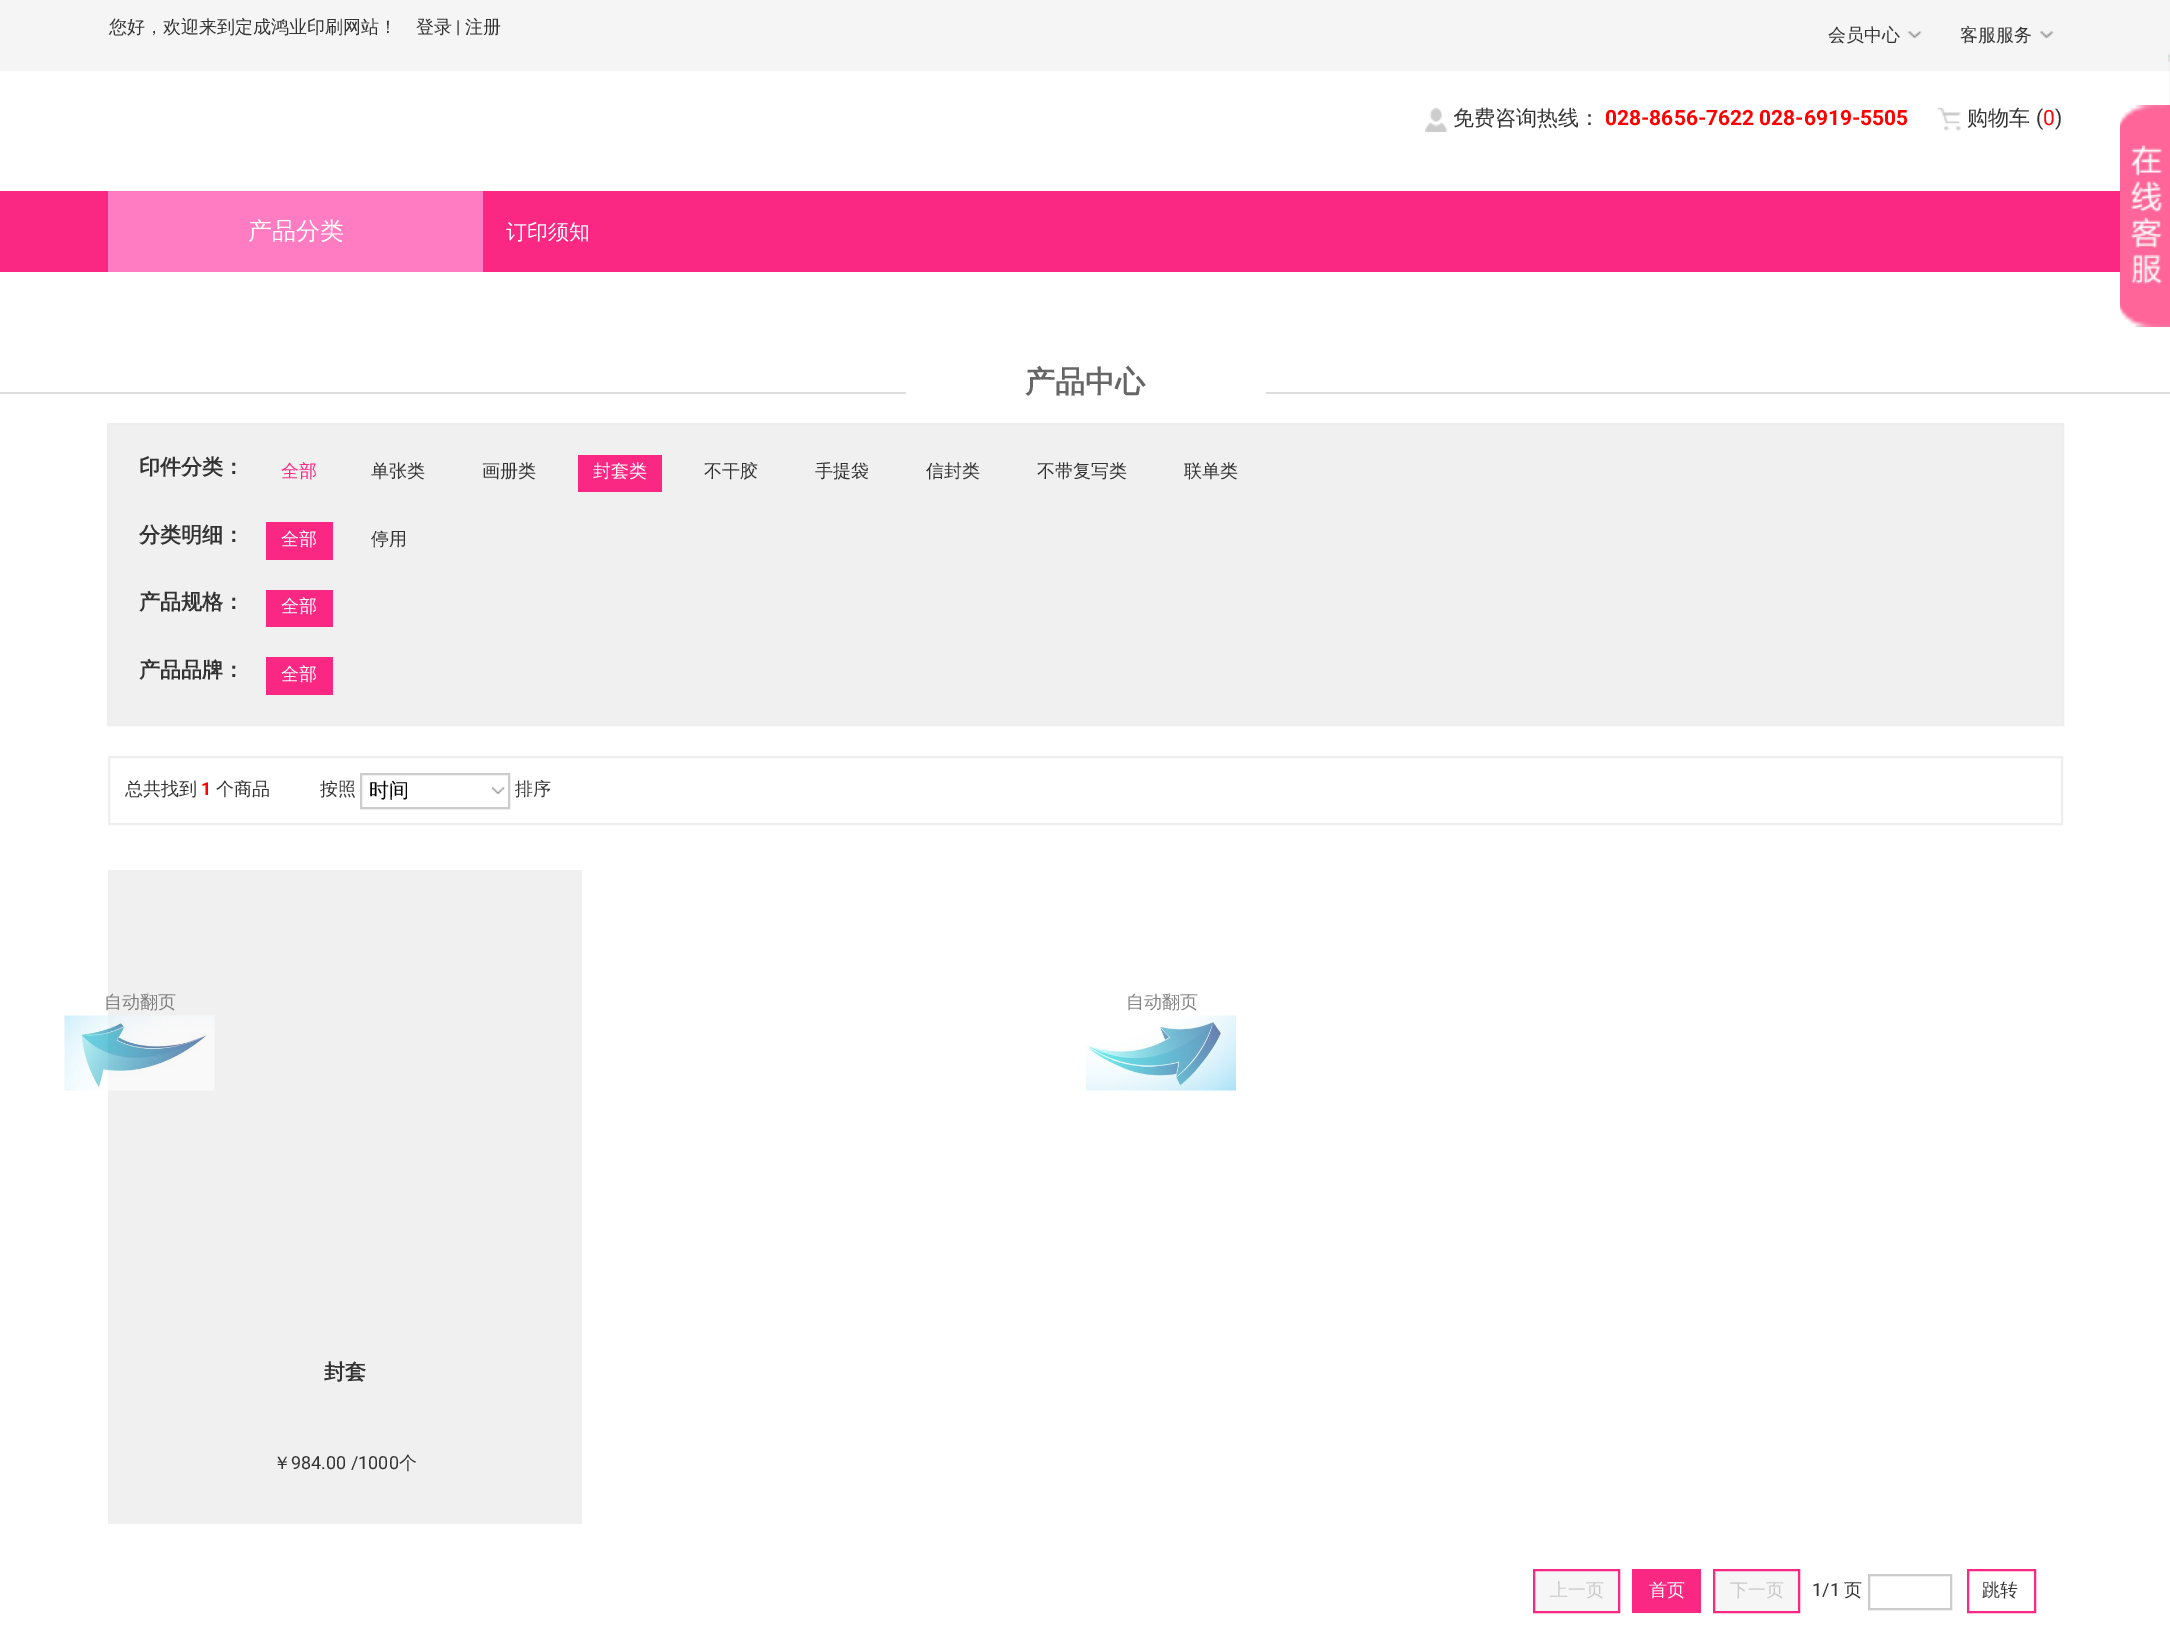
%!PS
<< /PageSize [2170 1644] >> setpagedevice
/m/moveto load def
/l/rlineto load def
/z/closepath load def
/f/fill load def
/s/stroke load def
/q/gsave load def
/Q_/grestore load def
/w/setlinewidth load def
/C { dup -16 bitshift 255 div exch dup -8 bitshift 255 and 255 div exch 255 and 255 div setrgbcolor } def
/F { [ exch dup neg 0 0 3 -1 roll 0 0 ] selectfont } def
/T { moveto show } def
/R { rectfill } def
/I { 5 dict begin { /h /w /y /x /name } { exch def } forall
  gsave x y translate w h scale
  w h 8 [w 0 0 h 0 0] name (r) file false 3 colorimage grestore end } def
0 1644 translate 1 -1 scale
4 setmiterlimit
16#FFFFFF C
0 0 2170 1644 R
16#F7F7F7 C
2169 71 1 253 R
16#F5F5F5 C
0 0 2170 71 R
16#EEEEEE C
2169 56 1 15 R
/WenQuanYiZenHei-Medium 18 F
16#333333 C
(您好，欢迎来到定成鸿业印刷网站！) 109 33 T
(登录) 416 33 T
/Roboto-Regular 18 F
(|) 456 33 T
/WenQuanYiZenHei-Medium 18 F
(注册) 465 33 T
(1.rgb) 1907 31 15 8 I
(会员中心) 1828 41 T
(2.rgb) 2039 31 15 8 I
(客服服务) 1960 41 T
(3.rgb) 1425 107 23 25 I
/WenQuanYiZenHei-Medium 21 F
(免费咨询热线：) 1453 125 T
/Roboto-Bold 21 F
16#FF0000 C
(028-8656-7622 028-6919-5505) 1605 125 T
(4.rgb) 1938 107 23 24 I
/WenQuanYiZenHei-Medium 21 F
16#333333 C
(购物车) 1967 125 T
/Roboto-Regular 21 F
(\() 2036 125 T
16#FF0000 C
(0) 2043 125 T
16#333333 C
(\)) 2055 125 T
16#FB2883 C
0 191 2120 81 R
16#FF7BC2 C
108 191 375 81 R
/WenQuanYiZenHei-Medium 24 F
16#FFFFFF C
(产品分类) 248 239 T
/WenQuanYiZenHei-Medium 21 F
(订印须知) 506 239 T
(5.rgb) 2168 53 2 9 I
(6.rgb) 2120 105 50 222 I
16#DDDDDD C
0 392 2170 2 R
16#FFFFFF C
906 392 360 2 R
/WenQuanYiZenHei-Bold 30 F
16#666666 C
(产品中心) 1025 392 T
16#F0F0F0 C
108 424 m 1955 0 l 0 301 l -1955 0 l z q f Q_
16#EEEEEE C
2 w
s
/WenQuanYiZenHei-Bold 21 F
16#333333 C
(印件分类：) 139 474 T
/WenQuanYiZenHei-Medium 18 F
16#FB2883 C
(全部) 281 477 T
16#333333 C
(单张类) 371 477 T
(画册类) 482 477 T
16#FB2883 C
578 455 84 37 R
16#FFFFFF C
(封套类) 593 477 T
16#333333 C
(不干胶) 704 477 T
(手提袋) 815 477 T
(信封类) 926 477 T
(不带复写类) 1037 477 T
(联单类) 1184 477 T
/WenQuanYiZenHei-Bold 21 F
(分类明细：) 139 542 T
16#FB2883 C
266 522 67 38 R
/WenQuanYiZenHei-Medium 18 F
16#FFFFFF C
(全部) 281 545 T
16#333333 C
(停用) 371 545 T
/WenQuanYiZenHei-Bold 21 F
(产品规格：) 139 609 T
16#FB2883 C
266 590 67 37 R
/WenQuanYiZenHei-Medium 18 F
16#FFFFFF C
(全部) 281 612 T
/WenQuanYiZenHei-Bold 21 F
16#333333 C
(产品品牌：) 139 677 T
16#FB2883 C
266 657 67 38 R
/WenQuanYiZenHei-Medium 18 F
16#FFFFFF C
(全部) 281 680 T
16#EEEEEE C
109 757 1953 67 rectstroke
16#333333 C
(总共找到) 125 795 T
/Roboto-Bold 18 F
16#FF0000 C
(1) 201 795 T
/WenQuanYiZenHei-Medium 18 F
16#333333 C
(个商品) 216 795 T
(按照) 320 795 T
(7.rgb) 491 786 14 8 I
16#CCCCCC C
361 774 148 34 rectstroke
/WenQuanYiZenHei-Medium 20 F
16#000000 C
(时间) 369 797 T
/WenQuanYiZenHei-Medium 18 F
16#333333 C
(排序) 515 795 T
16#F0F0F0 C
108 870 474 654 R
/WenQuanYiZenHei-Bold 21 F
16#333333 C
(封套) 324 1379 T
/WenQuanYiZenHei-Medium 18 F
(￥) 273 1469 T
/Roboto-Regular 18 F
(984.00 /1000) 291 1469 T
/WenQuanYiZenHei-Medium 18 F
(个) 399 1469 T
16#F6F6F6 C
1534 1570 m 85 0 l 0 42 l -85 0 l z q f Q_
16#FB2883 C
s
16#C8C8C8 C
(上一页) 1550 1596 T
16#FB2883 C
1632 1569 69 44 R
16#FFFFFF C
(首页) 1649 1596 T
16#F6F6F6 C
1714 1570 m 85 0 l 0 42 l -85 0 l z q f Q_
16#FB2883 C
s
16#C8C8C8 C
(下一页) 1730 1596 T
/Roboto-Regular 18 F
16#333333 C
(1/1) 1812 1596 T
/WenQuanYiZenHei-Medium 18 F
(页) 1844 1596 T
16#CCCCCC C
1869 1575 82 34 rectstroke
16#FB2883 C
1968 1570 67 42 rectstroke
16#333333 C
(跳转) 1982 1596 T
16#7F7F7F C
(自动翻页) 104 1008 T
(8.rgb) 64 1015 151 76 I
16#858585 C
(自动翻页) 1126 1008 T
(9.rgb) 1086 1015 150 76 I
showpage
